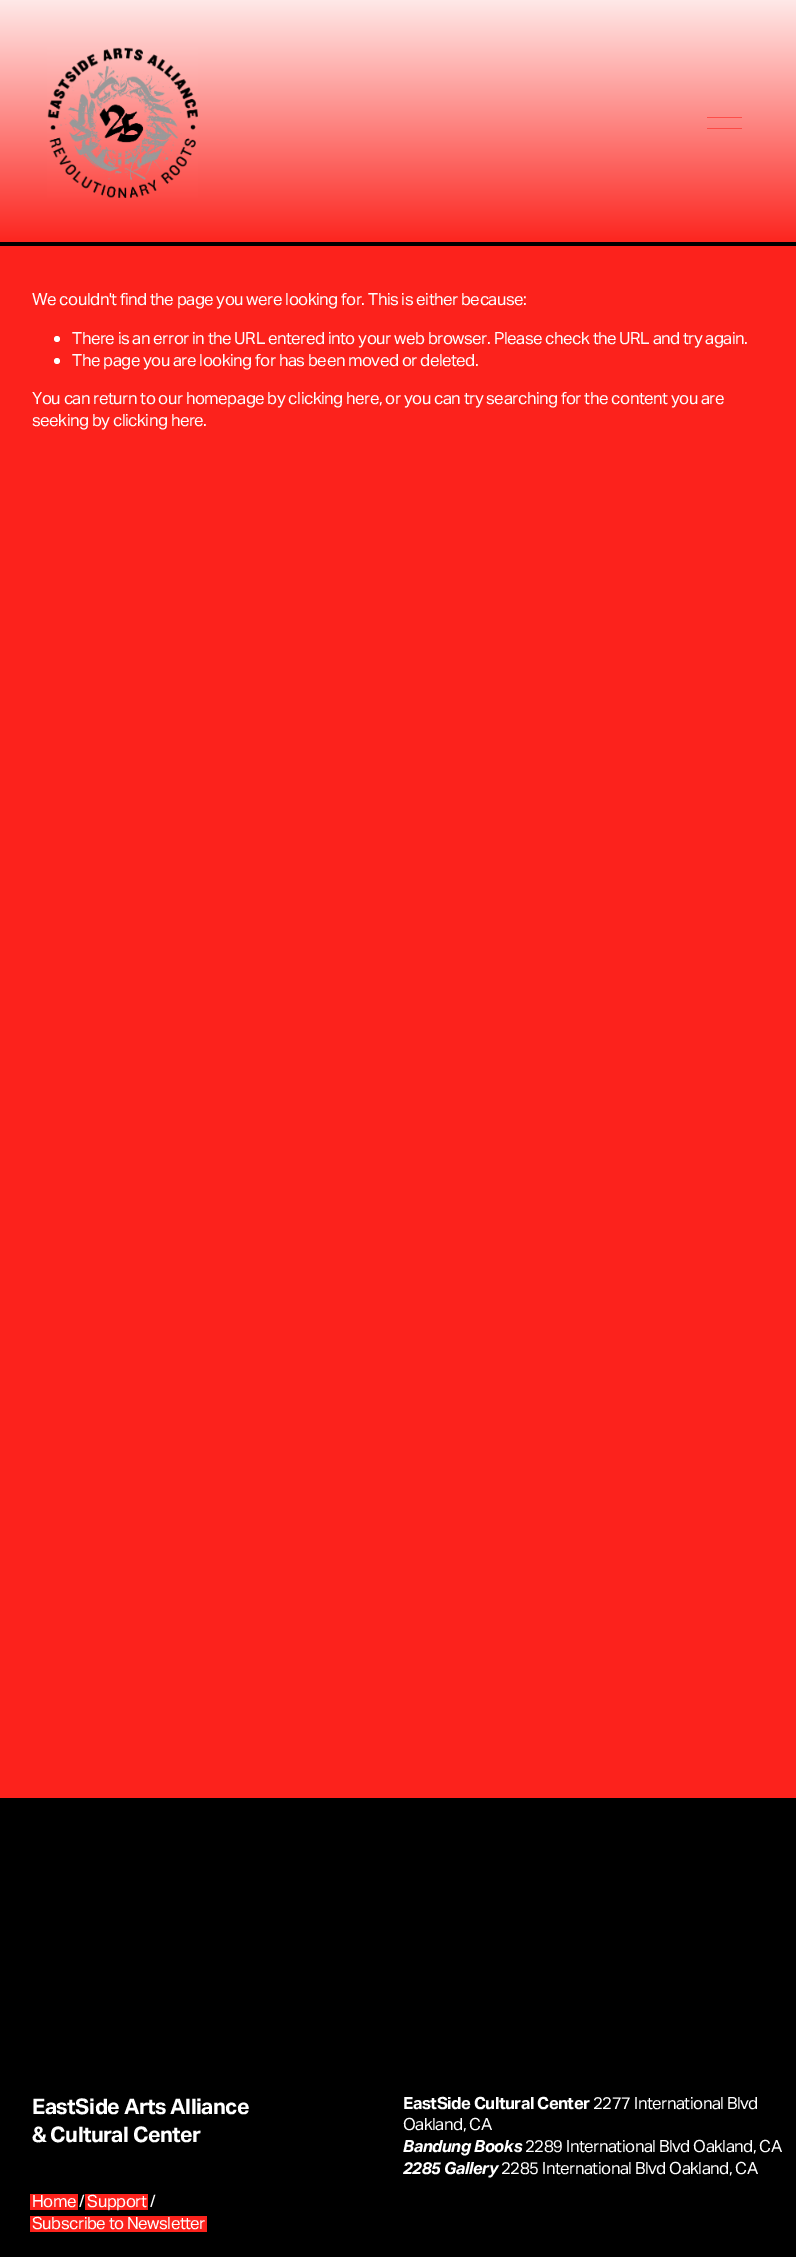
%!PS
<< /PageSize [796 2257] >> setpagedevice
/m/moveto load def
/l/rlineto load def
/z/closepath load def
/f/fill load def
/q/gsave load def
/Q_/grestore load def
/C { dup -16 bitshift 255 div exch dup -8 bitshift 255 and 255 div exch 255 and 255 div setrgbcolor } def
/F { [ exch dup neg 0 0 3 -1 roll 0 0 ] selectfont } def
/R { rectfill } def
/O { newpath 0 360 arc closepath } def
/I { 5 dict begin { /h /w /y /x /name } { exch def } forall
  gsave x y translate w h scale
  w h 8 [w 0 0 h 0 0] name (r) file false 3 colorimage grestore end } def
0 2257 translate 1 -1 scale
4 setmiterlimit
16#FC221C C
0 0 796 2257 R
q 0 0 m 796 0 l 0 242 l -796 0 l z clip newpath
<< /ShadingType 2 /ColorSpace /DeviceRGB /Coords [398 0 398 246] /Extend [true true] /Function << /FunctionType 2 /Domain [0 1] /C0 [1 .914 .91] /C1 [.988 .133 .11] /N 1 >> >> shfill Q_
(1.rgb) 47 47 151 151 I
16#FD4F4A C
707 117 35 1 R
16#FC4B46 C
707 128 35 1 R
16#000000 C
0 242 796 4 R
/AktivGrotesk-Regular 16.8 F
16#FFFFFF C
32 305 m -.5 0 (We couldn't find the page you were looking for. This is either because:) ashow
57 339 3 O f
72 344 m -.5 0 (There is an error in the URL entered into your web browser. Please check the URL and try again.) ashow
57 361 3 O f
72 366 m -.5 0 (The page you are looking for has been moved or deleted.) ashow
32 404 m -.5 0 (You can return to our homepage by clicking here, or you can try searching for the content you are) ashow
32 426 m -.5 0 (seeking by clicking here.) ashow
16#000000 C
0 1798 796 459 R
/AktivGrotesk-Bold 21.5 F
16#FFFFFF C
32 2114 m -.5 0 (EastSide Arts Alliance) ashow
32 2142 m -.5 0 (& Cultural Center) ashow
/AktivGrotesk-Bold 16.8 F
403 2109 m -.5 0 (EastSide Cultural Center) ashow
/AktivGrotesk-Regular 16.8 F
593 2109 m -.5 0 (2277 International Blvd) ashow
403 2130 m -.5 0 (Oakland, CA) ashow
/AktivGrotesk-BoldItalic 16.8 F
403 2152 m -.5 0 (Bandung Books) ashow
/AktivGrotesk-Regular 16.8 F
525 2152 m -.5 0 (2289 International Blvd Oakland, CA) ashow
/AktivGrotesk-BoldItalic 16.8 F
403 2174 m -.5 0 (2285 Gallery) ashow
/AktivGrotesk-Regular 16.8 F
501 2174 m -.5 0 (2285 International Blvd Oakland, CA) ashow
16#FC221C C
30 2194 48 16 R
85 2194 63 16 R
16#FFFFFF C
32 2207 m -.5 0 (Home / Support /) ashow
16#FC221C C
30 2216 177 16 R
16#FFFFFF C
32 2229 m -.5 0 (Subscribe to Newsletter) ashow
showpage
